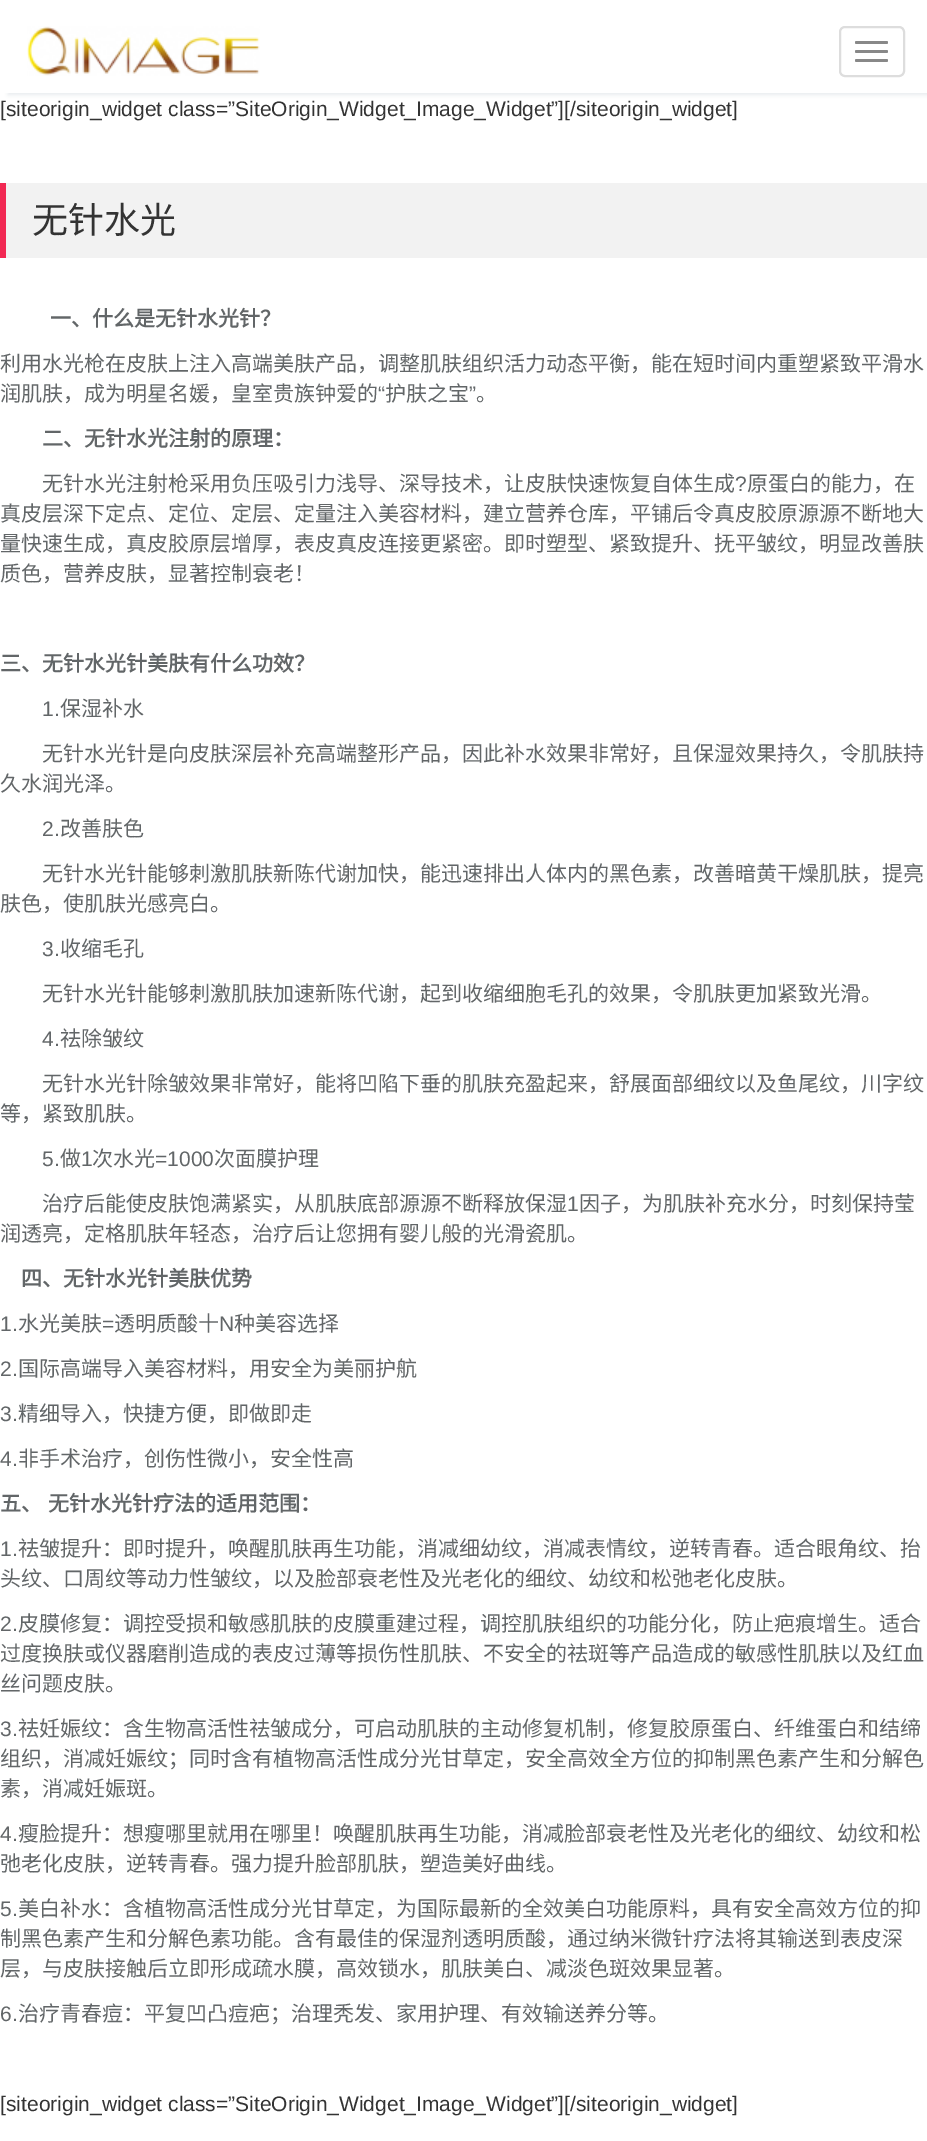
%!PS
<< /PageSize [927 2141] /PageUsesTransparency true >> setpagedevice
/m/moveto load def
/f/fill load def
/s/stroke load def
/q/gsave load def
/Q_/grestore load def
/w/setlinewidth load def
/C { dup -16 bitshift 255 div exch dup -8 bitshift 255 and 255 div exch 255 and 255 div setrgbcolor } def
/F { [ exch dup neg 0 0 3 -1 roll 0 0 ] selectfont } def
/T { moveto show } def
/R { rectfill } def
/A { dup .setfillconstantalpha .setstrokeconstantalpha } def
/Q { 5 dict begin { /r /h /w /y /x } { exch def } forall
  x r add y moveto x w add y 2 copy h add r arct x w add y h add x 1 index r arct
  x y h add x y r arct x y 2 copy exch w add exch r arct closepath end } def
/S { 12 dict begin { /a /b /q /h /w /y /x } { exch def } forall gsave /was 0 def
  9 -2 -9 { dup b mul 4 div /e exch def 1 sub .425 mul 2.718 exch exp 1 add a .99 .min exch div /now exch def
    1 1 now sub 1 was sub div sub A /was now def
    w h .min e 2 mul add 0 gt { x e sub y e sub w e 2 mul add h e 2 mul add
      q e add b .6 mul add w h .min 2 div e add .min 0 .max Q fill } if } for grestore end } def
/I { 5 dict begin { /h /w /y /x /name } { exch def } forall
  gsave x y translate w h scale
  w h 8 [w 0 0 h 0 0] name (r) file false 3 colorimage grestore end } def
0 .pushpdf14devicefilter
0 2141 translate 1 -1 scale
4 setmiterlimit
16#FFFFFF C
0 0 927 2141 R
q
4 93 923 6 rectclip
16#E8ECEE C
8 2 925 93 0 2 1 S
Q_
(1.rgb) 27 26 233 50 I
16#DDDDDD C
2 w
840 27 64 49 5 Q s
16#888888 C
855 41 33 3 1.5 Q f
855 50 33 3 1.5 Q f
855 59 33 3 1.5 Q f
/LiberationSans-Regular 21 F
16#333333 C
([siteorigin_widget class=”SiteOrigin_Widget_Image_Widget”][/siteorigin_widget]) 0 116 T
16#F2F2F2 C
6 183 921 75 R
16#F22853 C
0 183 6 75 R
/NotoSansCJKSC-Regular 36 F
16#333333 C
(无针水光) 32 233 T
/NotoSansCJKSC-Bold 21 F
16#626668 C
(一、什么是无针水光针？) 50 326 T
/NotoSansCJKSC-Regular 21 F
(利用水光枪在皮肤上注入高端美肤产品，调整肌肤组织活力动态平衡，能在短时间内重塑紧致平滑水) 0 371 T
(润肌肤，成为明星名媛，皇室贵族钟爱的) 0 401 T
/LiberationSans-Regular 21 F
(“) 378 401 T
/NotoSansCJKSC-Regular 21 F
(护肤之宝) 385 401 T
/LiberationSans-Regular 21 F
(”) 469 401 T
/NotoSansCJKSC-Regular 21 F
(。) 476 401 T
/NotoSansCJKSC-Bold 21 F
(二、无针水光注射的原理：) 42 446 T
/NotoSansCJKSC-Regular 21 F
(无针水光注射枪采用负压吸引力浅导、深导技术，让皮肤快速恢复自体生成) 42 491 T
/LiberationSans-Regular 21 F
(?) 735 491 T
/NotoSansCJKSC-Regular 21 F
(原蛋白的能力，在) 747 491 T
(真皮层深下定点、定位、定层、定量注入美容材料，建立营养仓库，平铺后令真皮胶原源源不断地大) 0 521 T
(量快速生成，真皮胶原层增厚，表皮真皮连接更紧密。即时塑型、紧致提升、抚平皱纹，明显改善肤) 0 551 T
(质色，营养皮肤，显著控制衰老！) 0 581 T
/NotoSansCJKSC-Bold 21 F
(三、无针水光针美肤有什么功效？) 0 671 T
/LiberationSans-Regular 21 F
(1.) 42 716 T
/NotoSansCJKSC-Regular 21 F
(保湿补水) 60 716 T
(无针水光针是向皮肤深层补充高端整形产品，因此补水效果非常好，且保湿效果持久，令肌肤持) 42 761 T
(久水润光泽。) 0 791 T
/LiberationSans-Regular 21 F
(2.) 42 836 T
/NotoSansCJKSC-Regular 21 F
(改善肤色) 60 836 T
(无针水光针能够刺激肌肤新陈代谢加快，能迅速排出人体内的黑色素，改善暗黄干燥肌肤，提亮) 42 881 T
(肤色，使肌肤光感亮白。) 0 911 T
/LiberationSans-Regular 21 F
(3.) 42 956 T
/NotoSansCJKSC-Regular 21 F
(收缩毛孔) 60 956 T
(无针水光针能够刺激肌肤加速新陈代谢，起到收缩细胞毛孔的效果，令肌肤更加紧致光滑。) 42 1001 T
/LiberationSans-Regular 21 F
(4.) 42 1046 T
/NotoSansCJKSC-Regular 21 F
(祛除皱纹) 60 1046 T
(无针水光针除皱效果非常好，能将凹陷下垂的肌肤充盈起来，舒展面部细纹以及鱼尾纹，川字纹) 42 1091 T
(等，紧致肌肤。) 0 1121 T
/LiberationSans-Regular 21 F
(5.) 42 1166 T
/NotoSansCJKSC-Regular 21 F
(做) 60 1166 T
/LiberationSans-Regular 21 F
(1) 81 1166 T
/NotoSansCJKSC-Regular 21 F
(次水光) 92 1166 T
/LiberationSans-Regular 21 F
(=1000) 155 1166 T
/NotoSansCJKSC-Regular 21 F
(次面膜护理) 214 1166 T
(治疗后能使皮肤饱满紧实，从肌肤底部源源不断释放保湿) 42 1211 T
/LiberationSans-Regular 21 F
(1) 567 1211 T
/NotoSansCJKSC-Regular 21 F
(因子，为肌肤补充水分，时刻保持莹) 579 1211 T
(润透亮，定格肌肤年轻态，治疗后让您拥有婴儿般的光滑瓷肌。) 0 1241 T
/NotoSansCJKSC-Bold 21 F
(四、无针水光针美肤优势) 21 1286 T
/LiberationSans-Regular 21 F
(1.) 0 1331 T
/NotoSansCJKSC-Regular 21 F
(水光美肤) 18 1331 T
/LiberationSans-Regular 21 F
(=) 102 1331 T
/NotoSansCJKSC-Regular 21 F
(透明质酸十) 114 1331 T
/LiberationSans-Regular 21 F
(N) 219 1331 T
/NotoSansCJKSC-Regular 21 F
(种美容选择) 234 1331 T
/LiberationSans-Regular 21 F
(2.) 0 1376 T
/NotoSansCJKSC-Regular 21 F
(国际高端导入美容材料，用安全为美丽护航) 18 1376 T
/LiberationSans-Regular 21 F
(3.) 0 1421 T
/NotoSansCJKSC-Regular 21 F
(精细导入，快捷方便，即做即走) 18 1421 T
/LiberationSans-Regular 21 F
(4.) 0 1466 T
/NotoSansCJKSC-Regular 21 F
(非手术治疗，创伤性微小，安全性高) 18 1466 T
/NotoSansCJKSC-Bold 21 F
0 1511 m 1 0 32 (五、 无针水光针疗法的适用范围：) widthshow
/LiberationSans-Regular 21 F
(1.) 0 1556 T
/NotoSansCJKSC-Regular 21 F
(祛皱提升：即时提升，唤醒肌肤再生功能，消减细幼纹，消减表情纹，逆转青春。适合眼角纹、抬) 18 1556 T
(头纹、口周纹等动力性皱纹，以及脸部衰老性及光老化的细纹、幼纹和松弛老化皮肤。) 0 1586 T
/LiberationSans-Regular 21 F
(2.) 0 1631 T
/NotoSansCJKSC-Regular 21 F
(皮膜修复：调控受损和敏感肌肤的皮膜重建过程，调控肌肤组织的功能分化，防止疤痕增生。适合) 18 1631 T
(过度换肤或仪器磨削造成的表皮过薄等损伤性肌肤、不安全的祛斑等产品造成的敏感性肌肤以及红血) 0 1661 T
(丝问题皮肤。) 0 1691 T
/LiberationSans-Regular 21 F
(3.) 0 1736 T
/NotoSansCJKSC-Regular 21 F
(祛妊娠纹：含生物高活性祛皱成分，可启动肌肤的主动修复机制，修复胶原蛋白、纤维蛋白和结缔) 18 1736 T
(组织，消减妊娠纹；同时含有植物高活性成分光甘草定，安全高效全方位的抑制黑色素产生和分解色) 0 1766 T
(素，消减妊娠斑。) 0 1796 T
/LiberationSans-Regular 21 F
(4.) 0 1841 T
/NotoSansCJKSC-Regular 21 F
(瘦脸提升：想瘦哪里就用在哪里！唤醒肌肤再生功能，消减脸部衰老性及光老化的细纹、幼纹和松) 18 1841 T
(弛老化皮肤，逆转青春。强力提升脸部肌肤，塑造美好曲线。) 0 1871 T
/LiberationSans-Regular 21 F
(5.) 0 1916 T
/NotoSansCJKSC-Regular 21 F
(美白补水：含植物高活性成分光甘草定，为国际最新的全效美白功能原料，具有安全高效方位的抑) 18 1916 T
(制黑色素产生和分解色素功能。含有最佳的保湿剂透明质酸，通过纳米微针疗法将其输送到表皮深) 0 1946 T
(层，与皮肤接触后立即形成疏水膜，高效锁水，肌肤美白、减淡色斑效果显著。) 0 1976 T
/LiberationSans-Regular 21 F
(6.) 0 2021 T
/NotoSansCJKSC-Regular 21 F
(治疗青春痘：平复凹凸痘疤；治理秃发、家用护理、有效输送养分等。) 18 2021 T
/LiberationSans-Regular 21 F
16#333333 C
([siteorigin_widget class=”SiteOrigin_Widget_Image_Widget”][/siteorigin_widget]) 0 2111 T
.poppdf14devicefilter showpage
